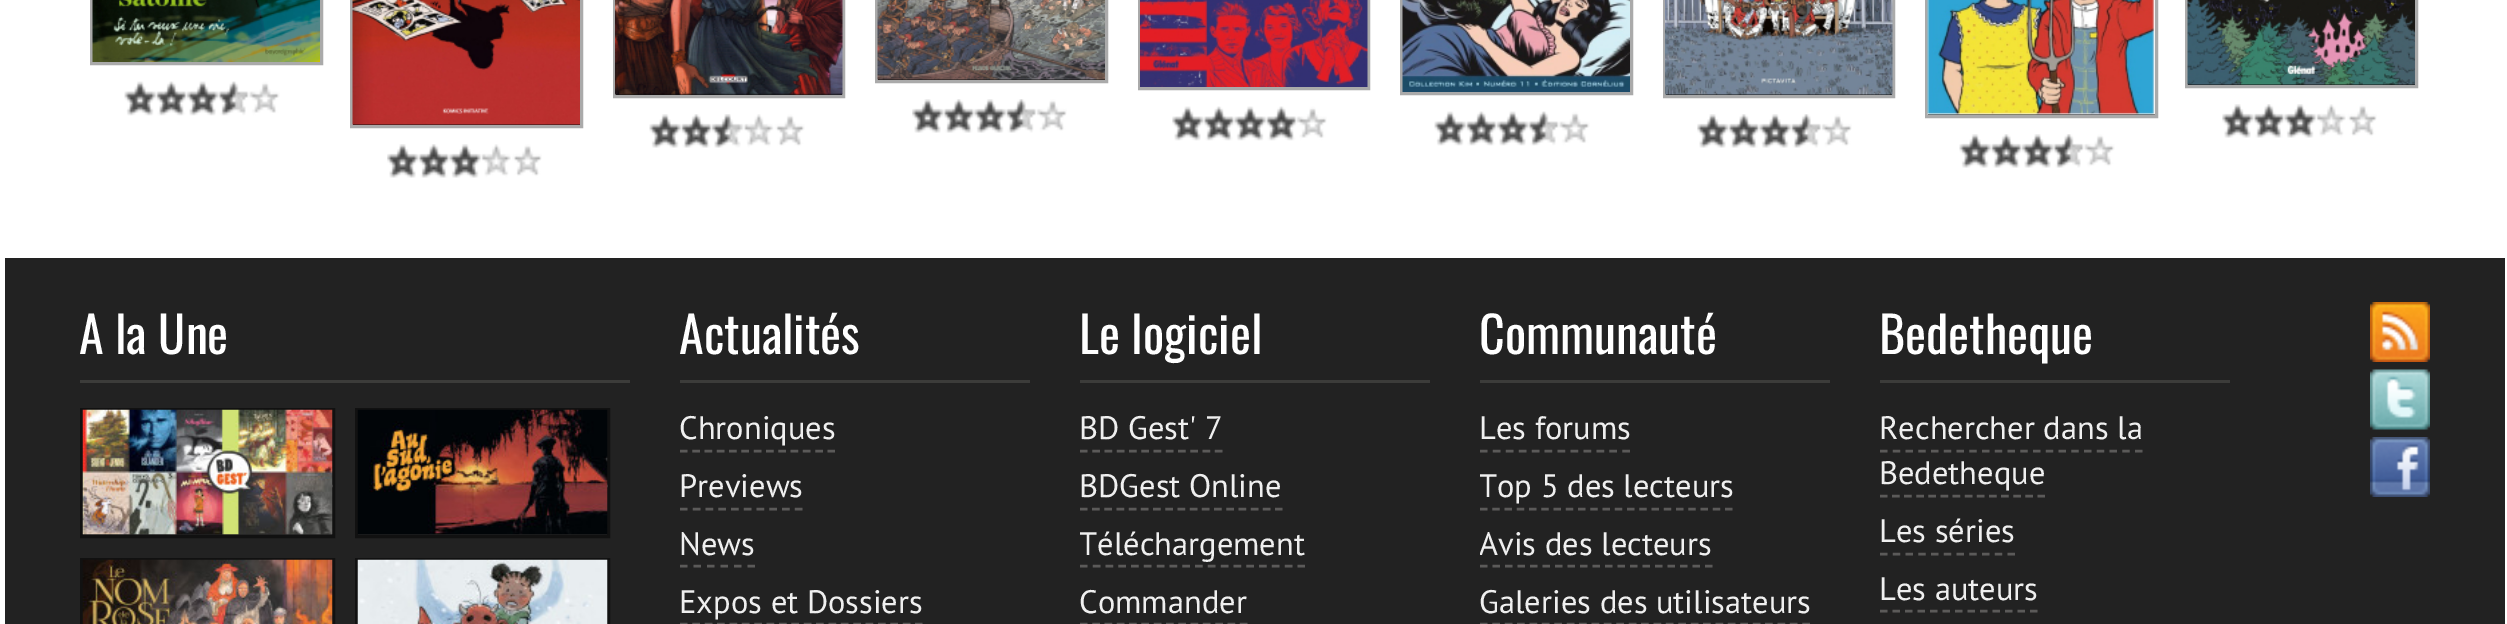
%!PS
<< /PageSize [2507 624] >> setpagedevice
/m/moveto load def
/l/rlineto load def
/s/stroke load def
/q/gsave load def
/Q_/grestore load def
/w/setlinewidth load def
/C { dup -16 bitshift 255 div exch dup -8 bitshift 255 and 255 div exch 255 and 255 div setrgbcolor } def
/F { [ exch dup neg 0 0 3 -1 roll 0 0 ] selectfont } def
/T { moveto show } def
/R { rectfill } def
/I { 5 dict begin { /h /w /y /x /name } { exch def } forall
  gsave x y translate w h scale
  w h 8 [w 0 0 h 0 0] name (r) file false 3 colorimage grestore end } def
0 624 translate 1 -1 scale
4 setmiterlimit
16#FFFFFF C
0 0 2507 624 R
16#AAAAAA C
3 w
91.5 -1.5 230 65 rectstroke
(1.rgb) 92 0 228 62 I
(2.rgb) 124 81 156 35 I
16#111111 C
353 124 227 1 R
16#AAAAAA C
351.5 -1.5 230 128 rectstroke
(3.rgb) 352 0 228 125 I
(4.rgb) 387 144 155 34 I
16#111111 C
616 94 226 1 R
16#AAAAAA C
614.5 -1.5 229 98 rectstroke
(5.rgb) 615 0 228 95 I
(6.rgb) 649 114 156 34 I
16#111111 C
878 79 227 1 R
16#AAAAAA C
876.5 -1.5 230 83 rectstroke
(7.rgb) 877 0 228 80 I
(8.rgb) 912 99 155 34 I
1139.5 -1.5 229 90 rectstroke
(9.rgb) 1140 0 228 87 I
(10.rgb) 1172 106 155 35 I
1401.5 -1.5 230 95 rectstroke
(11.rgb) 1402 0 228 92 I
(2.rgb) 1434 111 156 35 I
16#111111 C
1666 94 226 1 R
16#AAAAAA C
1664.5 -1.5 229 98 rectstroke
(12.rgb) 1665 0 228 95 I
(13.rgb) 1697 114 155 34 I
16#111111 C
1928 114 227 1 R
16#AAAAAA C
1926.5 -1.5 230 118 rectstroke
(14.rgb) 1927 0 228 115 I
(15.rgb) 1959 134 156 34 I
16#111111 C
2188 84 227 1 R
16#AAAAAA C
2186.5 -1.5 230 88 rectstroke
(16.rgb) 2187 0 228 85 I
(17.rgb) 2222 104 155 34 I
16#222222 C
5 258 2500 366 R
16#3C3C3A C
80 380 550 3 R
/Oswald-Regular 50 F
16#FFFFFF C
(A la Une) 79 354 T
16#111111 C
81.5 409.5 252 127 rectstroke
q
83 410 250 125 rectclip
16#5B5A59 C
2.5 w
[7.5 5.27] 0 setdash
82.5 486 m 250 0 l s
Q_
(18.rgb) 82 409 251 126 I
356.5 409.5 252 127 rectstroke
q
358 410 250 125 rectclip
16#5B5A59 C
2.5 w
[7.5 5.27] 0 setdash
357.5 486 m 250 0 l s
Q_
(19.rgb) 357 409 251 126 I
81.5 559.5 252 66 rectstroke
(20.rgb) 82 559 251 65 I
356.5 559.5 252 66 rectstroke
(21.rgb) 357 559 251 65 I
16#3C3C3A C
680 380 350 3 R
16#FFFFFF C
(Actualités) 679 354 T
/PTSans-Regular 32.5 F
16#EFEFEF C
(Chroniques) 679 439 T
16#5B5A59 C
2.5 w
[7.5 4.8] 0 setdash
680 451 m 155 0 l s
16#EFEFEF C
(Previews) 679 497 T
16#5B5A59 C
[7.5 5.27] 0 setdash
680 509 m 122.5 0 l s
16#EFEFEF C
(News) 679 555 T
16#5B5A59 C
[7.5 6] 0 setdash
680 566 m 75 0 l s
16#EFEFEF C
(Expos et Dossiers) 679 613 T
16#5B5A59 C
[7.5 4.88] 0 setdash
680 624 m 242.5 0 l s
16#3C3C3A C
1080 380 350 3 R
/Oswald-Regular 50 F
16#FFFFFF C
(Le logiciel) 1079 354 T
/PTSans-Regular 32.5 F
16#EFEFEF C
(BD Gest' 7) 1079 439 T
16#5B5A59 C
[7.5 4.77] 0 setdash
1080 451 m 142.5 0 l s
16#EFEFEF C
(BDGest Online) 1079 497 T
16#5B5A59 C
[7.5 4.7] 0 setdash
1080 509 m 202.5 0 l s
q
1080 408 350 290 rectclip
16#EFEFEF C
(Téléchargement) 1079 555 T
Q_
[7.5 5.3] 0 setdash
1080 566 m 225 0 l s
16#EFEFEF C
(Commander) 1079 613 T
16#5B5A59 C
[7.5 4.8] 0 setdash
1080 624 m 167.5 0 l s
16#3C3C3A C
1480 380 350 3 R
/Oswald-Regular 50 F
16#FFFFFF C
(Communauté) 1479 354 T
/PTSans-Regular 32.5 F
16#EFEFEF C
(Les forums) 1479 439 T
16#5B5A59 C
[7.5 5.45] 0 setdash
1480 451 m 150 0 l s
q
1480 408 350 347 rectclip
16#EFEFEF C
(Top 5 des lecteurs) 1479 497 T
Q_
[7.5 4.75] 0 setdash
1480 509 m 252.5 0 l s
q
1480 408 350 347 rectclip
16#EFEFEF C
(Avis des lecteurs) 1479 555 T
Q_
[7.5 5] 0 setdash
1480 566 m 232.5 0 l s
16#EFEFEF C
(Galeries des utilisateurs) 1479 613 T
16#5B5A59 C
[7.5 4.9] 0 setdash
1480 624 m 330 0 l s
16#3C3C3A C
1880 380 350 3 R
/Oswald-Regular 50 F
16#FFFFFF C
(Bedetheque) 1879 354 T
/PTSans-Regular 32.5 F
16#EFEFEF C
(Rechercher dans la) 1879 439 T
16#5B5A59 C
[7.5 5.25] 0 setdash
1880 451 m 262.5 0 l s
16#EFEFEF C
(Bedetheque) 1879 484 T
16#5B5A59 C
[7.5 4.62] 0 setdash
1880 496 m 165 0 l s
16#EFEFEF C
(Les séries) 1879 542 T
16#5B5A59 C
[7.5 5.25] 0 setdash
1880 554 m 135 0 l s
16#EFEFEF C
(Les auteurs) 1879 600 T
16#5B5A59 C
[7.5 5] 0 setdash
1880 611 m 157.5 0 l s
(22.rgb) 2370 302 60 60 I
(23.rgb) 2370 369 60 61 I
(24.rgb) 2370 437 60 60 I
showpage
